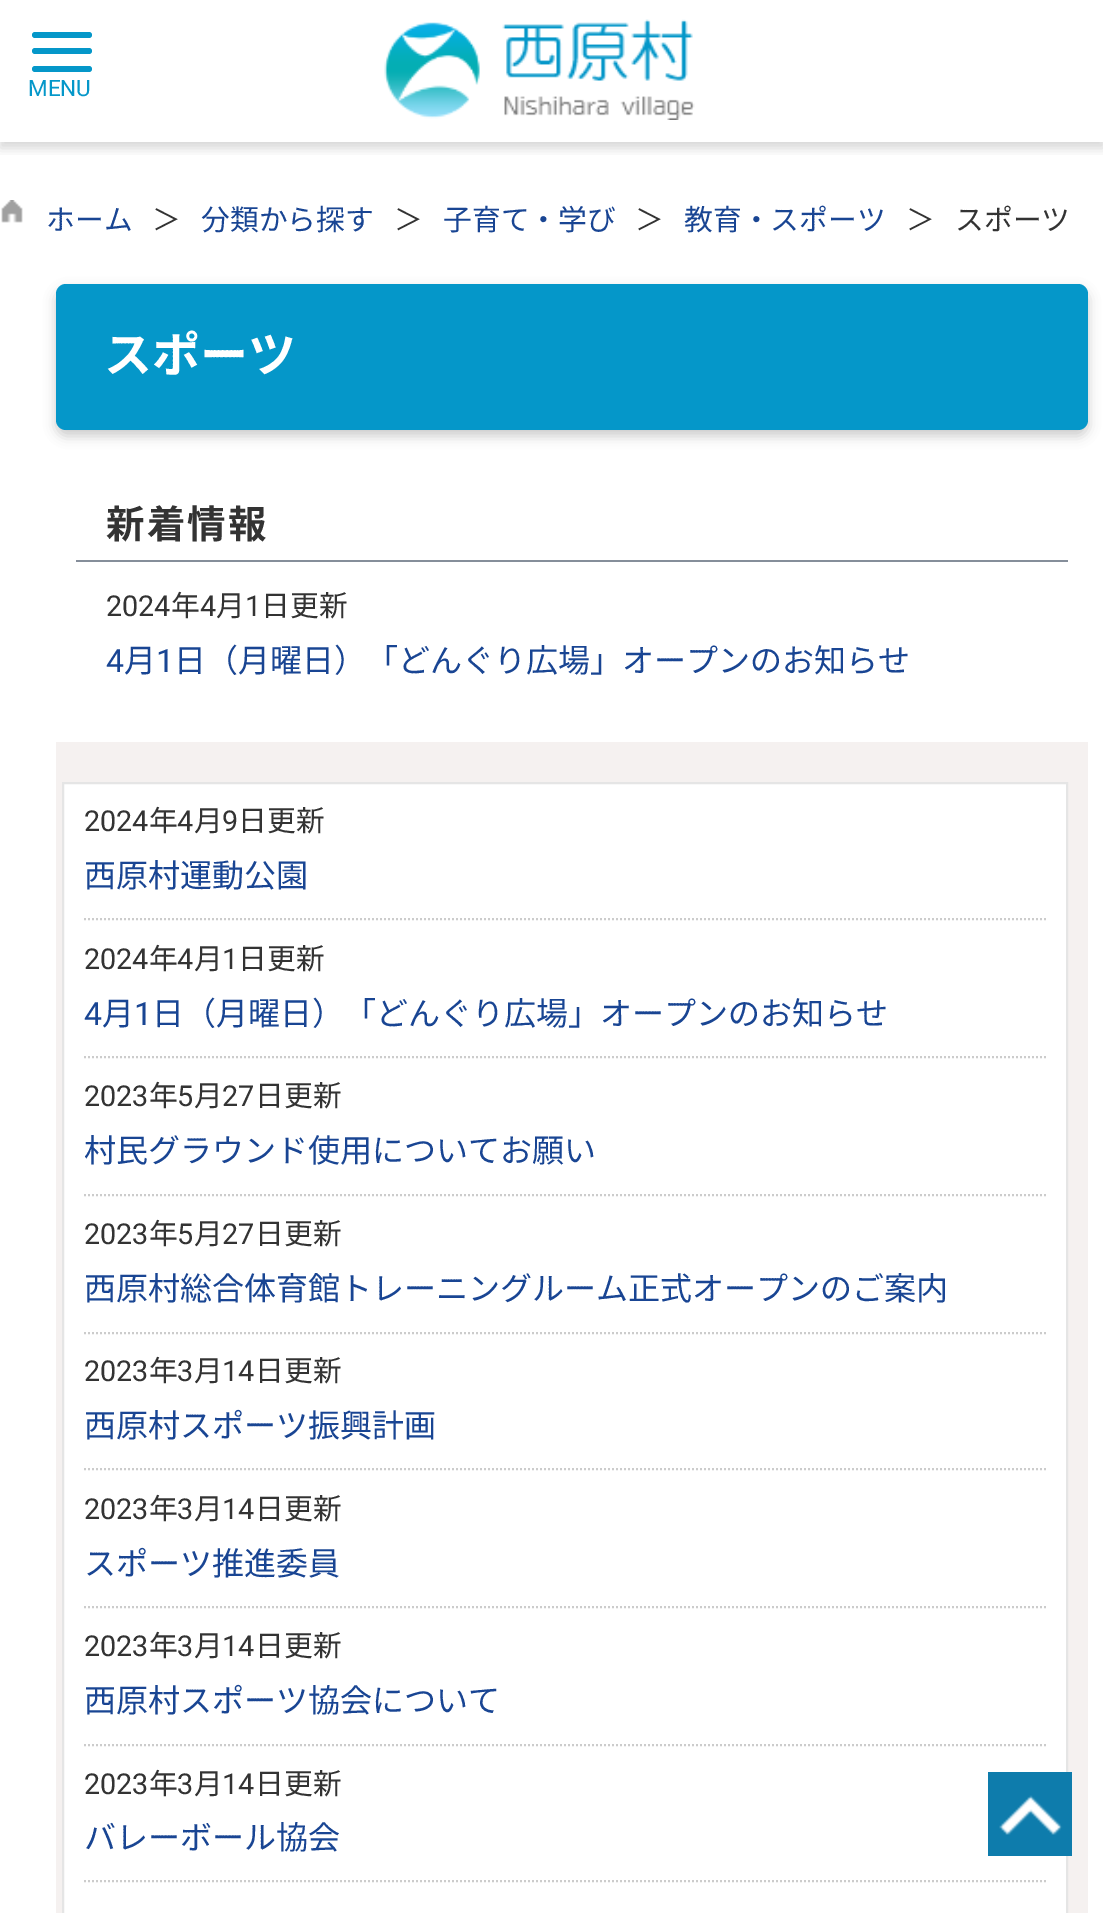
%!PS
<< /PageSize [1103 1913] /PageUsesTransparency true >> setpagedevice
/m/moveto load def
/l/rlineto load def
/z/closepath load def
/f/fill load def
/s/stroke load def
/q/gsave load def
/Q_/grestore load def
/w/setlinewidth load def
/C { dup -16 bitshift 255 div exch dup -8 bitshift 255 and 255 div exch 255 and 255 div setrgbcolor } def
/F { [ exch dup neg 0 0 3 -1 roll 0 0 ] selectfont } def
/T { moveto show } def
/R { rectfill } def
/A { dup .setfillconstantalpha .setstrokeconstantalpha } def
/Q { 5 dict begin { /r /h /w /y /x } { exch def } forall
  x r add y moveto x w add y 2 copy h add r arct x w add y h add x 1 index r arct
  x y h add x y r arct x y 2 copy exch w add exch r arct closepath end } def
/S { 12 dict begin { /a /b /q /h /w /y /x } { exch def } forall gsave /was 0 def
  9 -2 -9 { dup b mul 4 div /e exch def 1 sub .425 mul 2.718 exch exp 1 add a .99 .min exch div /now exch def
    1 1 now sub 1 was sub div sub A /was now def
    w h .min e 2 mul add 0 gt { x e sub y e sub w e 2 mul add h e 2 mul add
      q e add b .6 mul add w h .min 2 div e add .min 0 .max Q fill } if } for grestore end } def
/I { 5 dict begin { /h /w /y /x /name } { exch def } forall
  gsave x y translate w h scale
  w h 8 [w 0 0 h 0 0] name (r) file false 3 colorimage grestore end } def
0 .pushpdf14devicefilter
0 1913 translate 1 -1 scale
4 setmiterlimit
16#FFFFFF C
0 0 1103 1913 R
q
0 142 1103 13 rectclip
16#000000 C
0 6 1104 142 0 6 .16 S
Q_
16#0597C9 C
32 32 60 6 3 Q f
32 48 60 6 3 Q f
32 66 60 6 3 Q f
/Roboto-Regular 22.5 F
(MENU) 28 96 T
(1.rgb) 384 19 311 101 I
(2.rgb) 1 200 22 23 I
/NotoSansJP-Regular 28.75 F
16#194593 C
(ホーム) 46 230 T
16#333333 C
(＞) 152 230 T
16#194593 C
(分類から探す) 201 230 T
16#333333 C
(＞) 394 230 T
16#194593 C
(子育て・学び) 443 230 T
16#333333 C
(＞) 635 230 T
16#194593 C
(教育・スポーツ) 684 230 T
16#333333 C
(＞) 906 230 T
(スポーツ) 955 230 T
16#000000 C
56 290 1032 146 10 6 .2 S
16#0597C9 C
56 284 1032 146 10 Q f
/NotoSansJP-Bold 48 F
16#FFFFFF C
(スポーツ) 104 372 T
16#858E9A C
76 560 992 2 R
/NotoSansJP-Bold 38.5 F
16#333333 C
106 538 m 2 0 (新着情報) ashow
/Roboto-Regular 28.75 F
(2024) 106 616 T
/NotoSansJP-Regular 28.75 F
(年) 171 616 T
/Roboto-Regular 28.75 F
(4) 200 616 T
/NotoSansJP-Regular 28.75 F
(月) 216 616 T
/Roboto-Regular 28.75 F
(1) 245 616 T
/NotoSansJP-Regular 28.75 F
(日更新) 261 616 T
/Roboto-Regular 32 F
16#194593 C
(4) 106 672 T
/NotoSansJP-Regular 32 F
(月) 124 672 T
/Roboto-Regular 32 F
(1) 156 672 T
/NotoSansJP-Regular 32 F
(日（月曜日）「どんぐり広場」オープンのお知らせ) 174 672 T
16#F5F1F0 C
56 742 1032 1171 R
16#FFFFFF C
63 783 m 1004 0 l 0 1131 l -1004 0 l z q f Q_
16#E5E5E5 C
2 w
s
/Roboto-Regular 28.75 F
16#333333 C
(2024) 84 831 T
/NotoSansJP-Regular 28.75 F
(年) 149 831 T
/Roboto-Regular 28.75 F
(4) 177 831 T
/NotoSansJP-Regular 28.75 F
(月) 194 831 T
/Roboto-Regular 28.75 F
(9) 222 831 T
/NotoSansJP-Regular 28.75 F
(日更新) 238 831 T
/NotoSansJP-Regular 32 F
16#194593 C
(西原村運動公園) 84 887 T
16#CCCCCC C
[2 2] 0 setdash
84 919 m 962 0 l s
/Roboto-Regular 28.75 F
16#333333 C
(2024) 84 969 T
/NotoSansJP-Regular 28.75 F
(年) 149 969 T
/Roboto-Regular 28.75 F
(4) 177 969 T
/NotoSansJP-Regular 28.75 F
(月) 194 969 T
/Roboto-Regular 28.75 F
(1) 222 969 T
/NotoSansJP-Regular 28.75 F
(日更新) 238 969 T
/Roboto-Regular 32 F
16#194593 C
(4) 84 1025 T
/NotoSansJP-Regular 32 F
(月) 102 1025 T
/Roboto-Regular 32 F
(1) 134 1025 T
/NotoSansJP-Regular 32 F
(日（月曜日）「どんぐり広場」オープンのお知らせ) 152 1025 T
16#CCCCCC C
84 1057 m 962 0 l s
/Roboto-Regular 28.75 F
16#333333 C
(2023) 84 1106 T
/NotoSansJP-Regular 28.75 F
(年) 149 1106 T
/Roboto-Regular 28.75 F
(5) 177 1106 T
/NotoSansJP-Regular 28.75 F
(月) 194 1106 T
/Roboto-Regular 28.75 F
(27) 222 1106 T
/NotoSansJP-Regular 28.75 F
(日更新) 255 1106 T
/NotoSansJP-Regular 32 F
16#194593 C
(村民グラウンド使用についてお願い) 84 1162 T
16#CCCCCC C
84 1195 m 962 0 l s
/Roboto-Regular 28.75 F
16#333333 C
(2023) 84 1244 T
/NotoSansJP-Regular 28.75 F
(年) 149 1244 T
/Roboto-Regular 28.75 F
(5) 177 1244 T
/NotoSansJP-Regular 28.75 F
(月) 194 1244 T
/Roboto-Regular 28.75 F
(27) 222 1244 T
/NotoSansJP-Regular 28.75 F
(日更新) 255 1244 T
/NotoSansJP-Regular 32 F
16#194593 C
(西原村総合体育館トレーニングルーム正式オープンのご案内) 84 1300 T
16#CCCCCC C
84 1333 m 962 0 l s
/Roboto-Regular 28.75 F
16#333333 C
(2023) 84 1381 T
/NotoSansJP-Regular 28.75 F
(年) 149 1381 T
/Roboto-Regular 28.75 F
(3) 177 1381 T
/NotoSansJP-Regular 28.75 F
(月) 194 1381 T
/Roboto-Regular 28.75 F
(14) 222 1381 T
/NotoSansJP-Regular 28.75 F
(日更新) 255 1381 T
/NotoSansJP-Regular 32 F
16#194593 C
(西原村スポーツ振興計画) 84 1437 T
16#CCCCCC C
84 1469 m 962 0 l s
/Roboto-Regular 28.75 F
16#333333 C
(2023) 84 1519 T
/NotoSansJP-Regular 28.75 F
(年) 149 1519 T
/Roboto-Regular 28.75 F
(3) 177 1519 T
/NotoSansJP-Regular 28.75 F
(月) 194 1519 T
/Roboto-Regular 28.75 F
(14) 222 1519 T
/NotoSansJP-Regular 28.75 F
(日更新) 255 1519 T
/NotoSansJP-Regular 32 F
16#194593 C
(スポーツ推進委員) 84 1575 T
16#CCCCCC C
84 1607 m 962 0 l s
/Roboto-Regular 28.75 F
16#333333 C
(2023) 84 1656 T
/NotoSansJP-Regular 28.75 F
(年) 149 1656 T
/Roboto-Regular 28.75 F
(3) 177 1656 T
/NotoSansJP-Regular 28.75 F
(月) 194 1656 T
/Roboto-Regular 28.75 F
(14) 222 1656 T
/NotoSansJP-Regular 28.75 F
(日更新) 255 1656 T
/NotoSansJP-Regular 32 F
16#194593 C
(西原村スポーツ協会について) 84 1712 T
16#CCCCCC C
84 1745 m 962 0 l s
/Roboto-Regular 28.75 F
16#333333 C
(2023) 84 1794 T
/NotoSansJP-Regular 28.75 F
(年) 149 1794 T
/Roboto-Regular 28.75 F
(3) 177 1794 T
/NotoSansJP-Regular 28.75 F
(月) 194 1794 T
/Roboto-Regular 28.75 F
(14) 222 1794 T
/NotoSansJP-Regular 28.75 F
(日更新) 255 1794 T
/NotoSansJP-Regular 32 F
16#194593 C
(バレーボール協会) 84 1849 T
16#CCCCCC C
84 1881 m 962 0 l s
(3.rgb) 988 1772 84 84 I
.poppdf14devicefilter showpage
